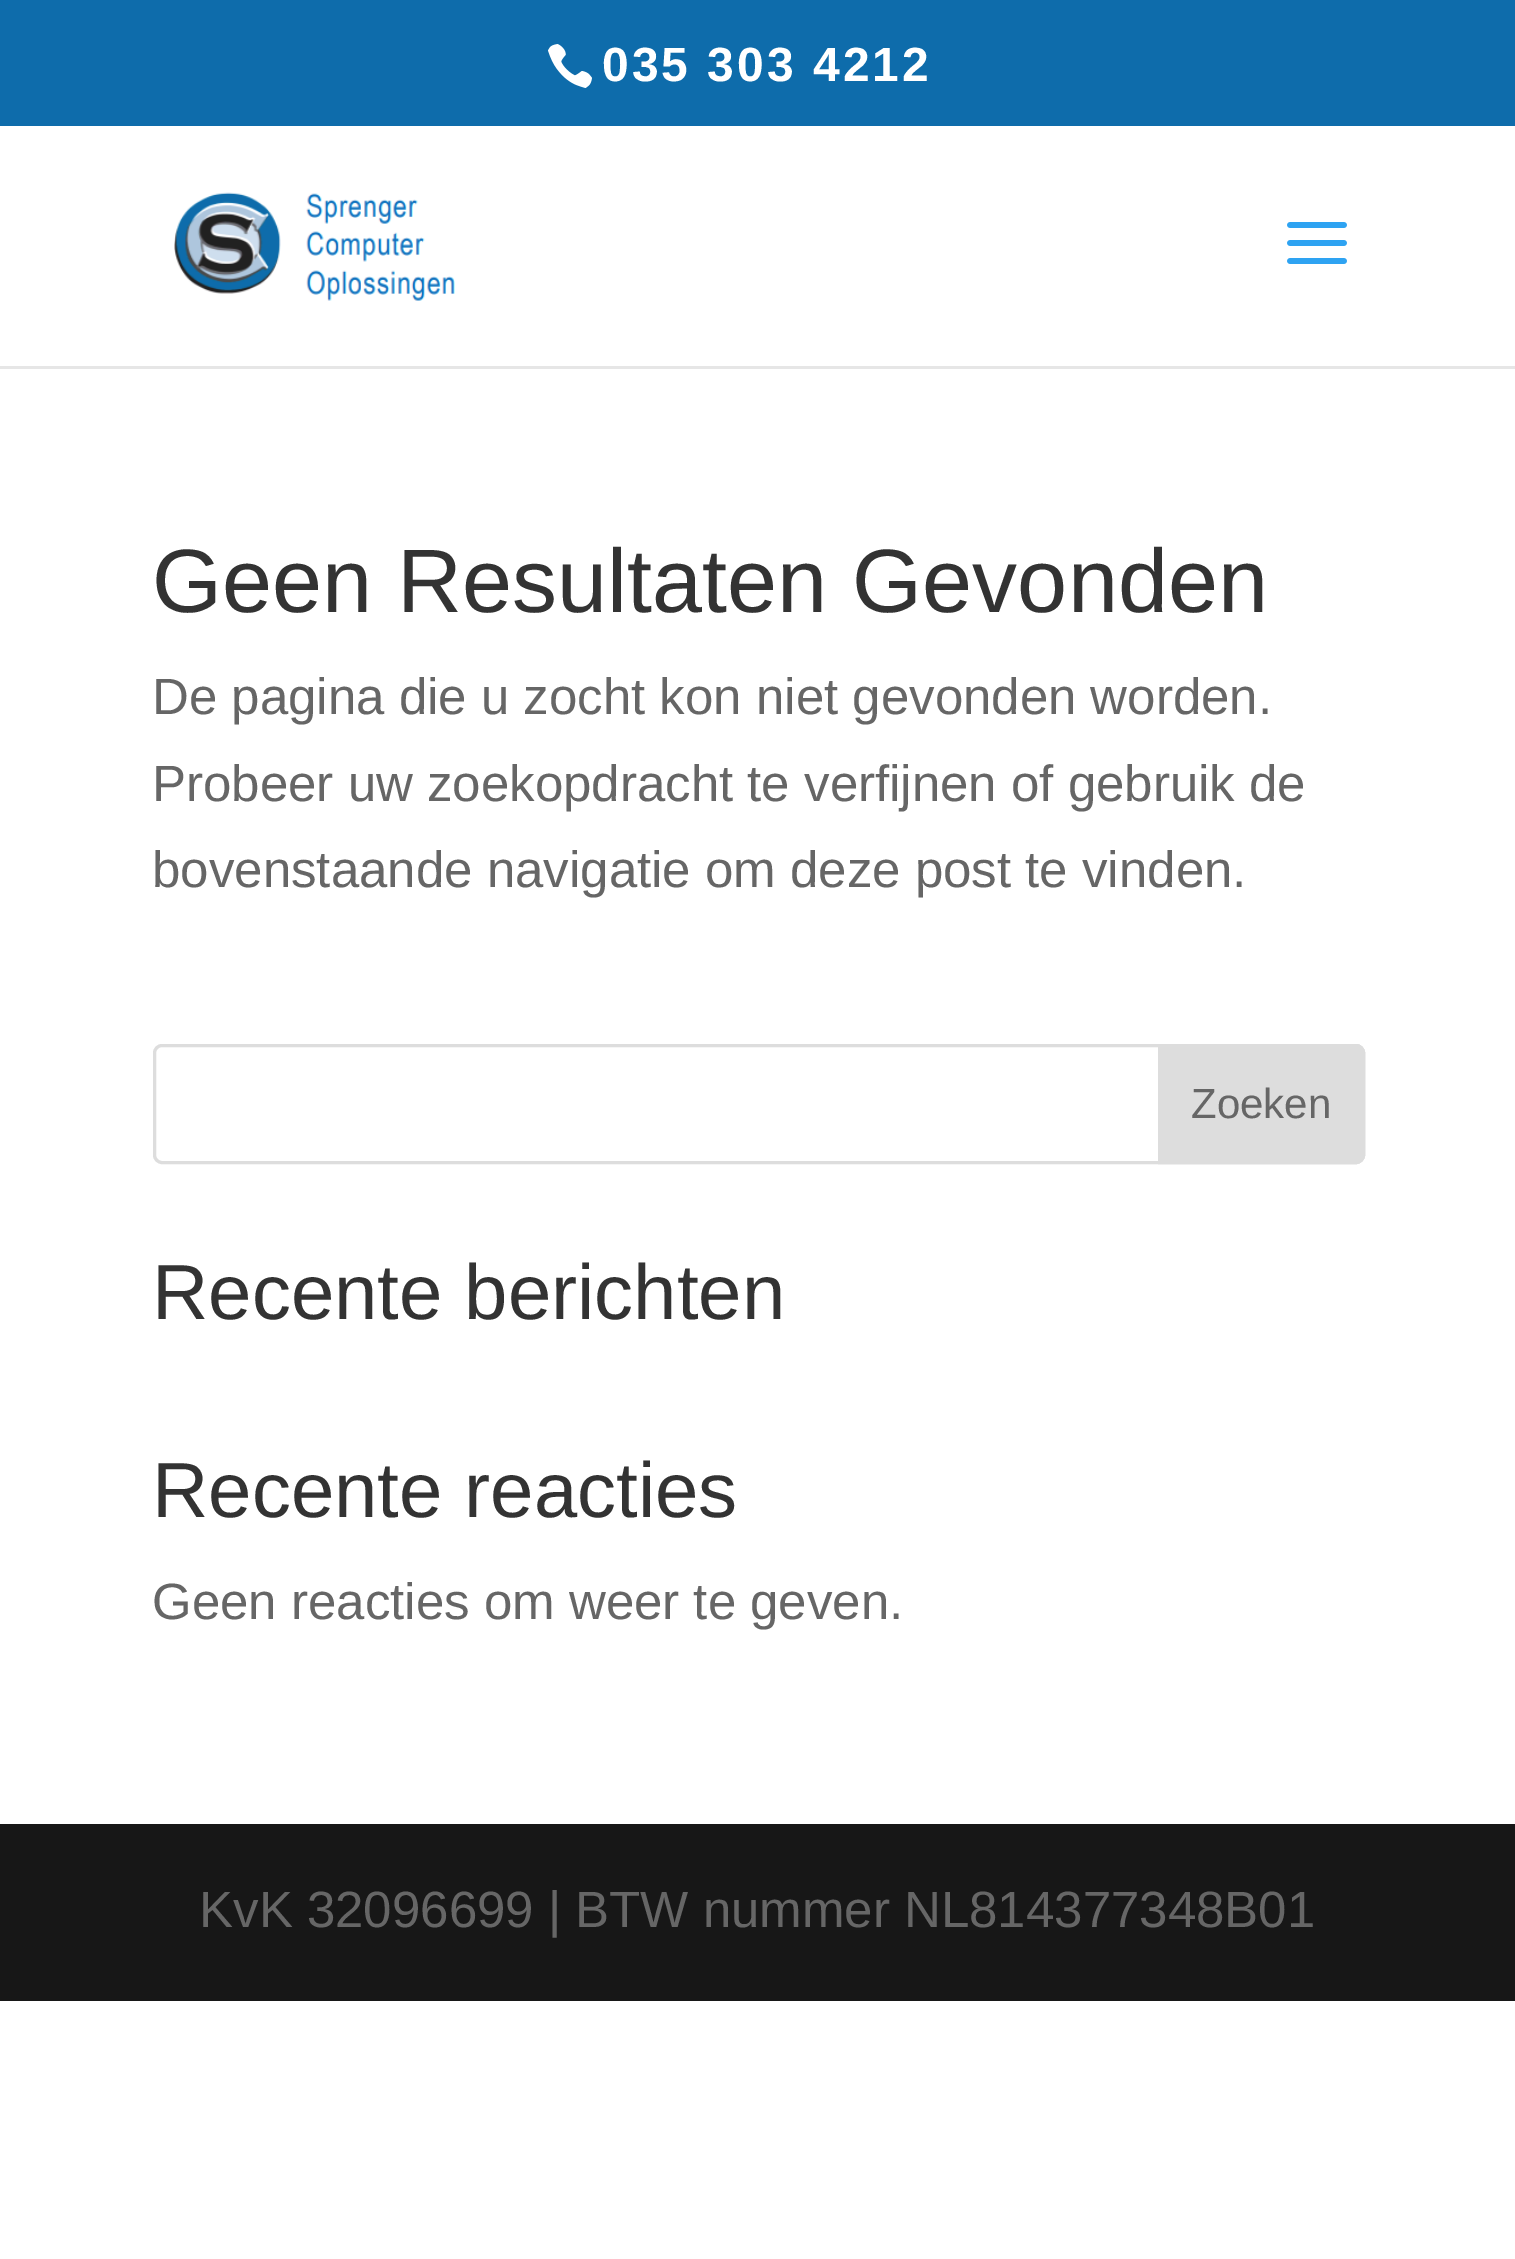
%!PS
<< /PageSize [1515 2259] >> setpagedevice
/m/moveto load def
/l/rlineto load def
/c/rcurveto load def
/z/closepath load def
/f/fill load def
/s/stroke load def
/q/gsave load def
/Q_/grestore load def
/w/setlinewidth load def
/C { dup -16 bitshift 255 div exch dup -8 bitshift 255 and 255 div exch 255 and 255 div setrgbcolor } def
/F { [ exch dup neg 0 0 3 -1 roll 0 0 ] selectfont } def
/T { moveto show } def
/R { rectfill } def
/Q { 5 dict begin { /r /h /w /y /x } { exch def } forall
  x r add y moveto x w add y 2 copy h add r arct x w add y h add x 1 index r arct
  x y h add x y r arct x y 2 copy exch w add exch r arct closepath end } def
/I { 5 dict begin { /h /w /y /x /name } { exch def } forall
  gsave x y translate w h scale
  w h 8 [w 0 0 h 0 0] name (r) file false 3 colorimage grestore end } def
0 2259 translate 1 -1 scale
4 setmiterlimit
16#FFFFFF C
0 0 1515 2259 R
16#0E6CAB C
0 0 1515 126 R
(1.rgb) 548 44 44 44 I
/LiberationSans-Bold 48 F
16#FFFFFF C
602 81 m 3 0 (035 303 4212) ashow
16#E6E6E6 C
0 366 1515 3 R
(2.rgb) 174 192 281 109 I
(3.rgb) 1287 222 60 42 I
/LiberationSans-Regular 90 F
16#333333 C
(Geen Resultaten Gevonden) 152 612 T
/LiberationSans-Regular 51 F
16#666666 C
(De pagina die u zocht kon niet gevonden worden.) 152 714 T
(Probeer uw zoekopdracht te verfijnen of gebruik de) 152 801 T
(bovenstaande navigatie om deze post te vinden.) 152 887 T
16#DDDDDD C
3 w
154.5 1045.5 1209 117 7.5 Q s
1159.5 1045.5 m 196.5 0 l 4 0 7.5 3.5 7.5 7.5 c 0 102 l 0 4 -3.5 7.5 -7.5 7.5 c -196.5 0 l z q f Q_
s
/LiberationSans-Regular 42 F
16#666666 C
(Zoeken) 1191 1118 T
/LiberationSans-Regular 78 F
16#333333 C
(Recente berichten) 152 1319 T
(Recente reacties) 152 1517 T
/LiberationSans-Regular 51 F
16#666666 C
(Geen reacties om weer te geven.) 152 1619 T
16#171717 C
0 1824 1515 177 R
16#666666 C
(KvK 32096699 | BTW nummer NL814377348B01) 199 1927 T
showpage
